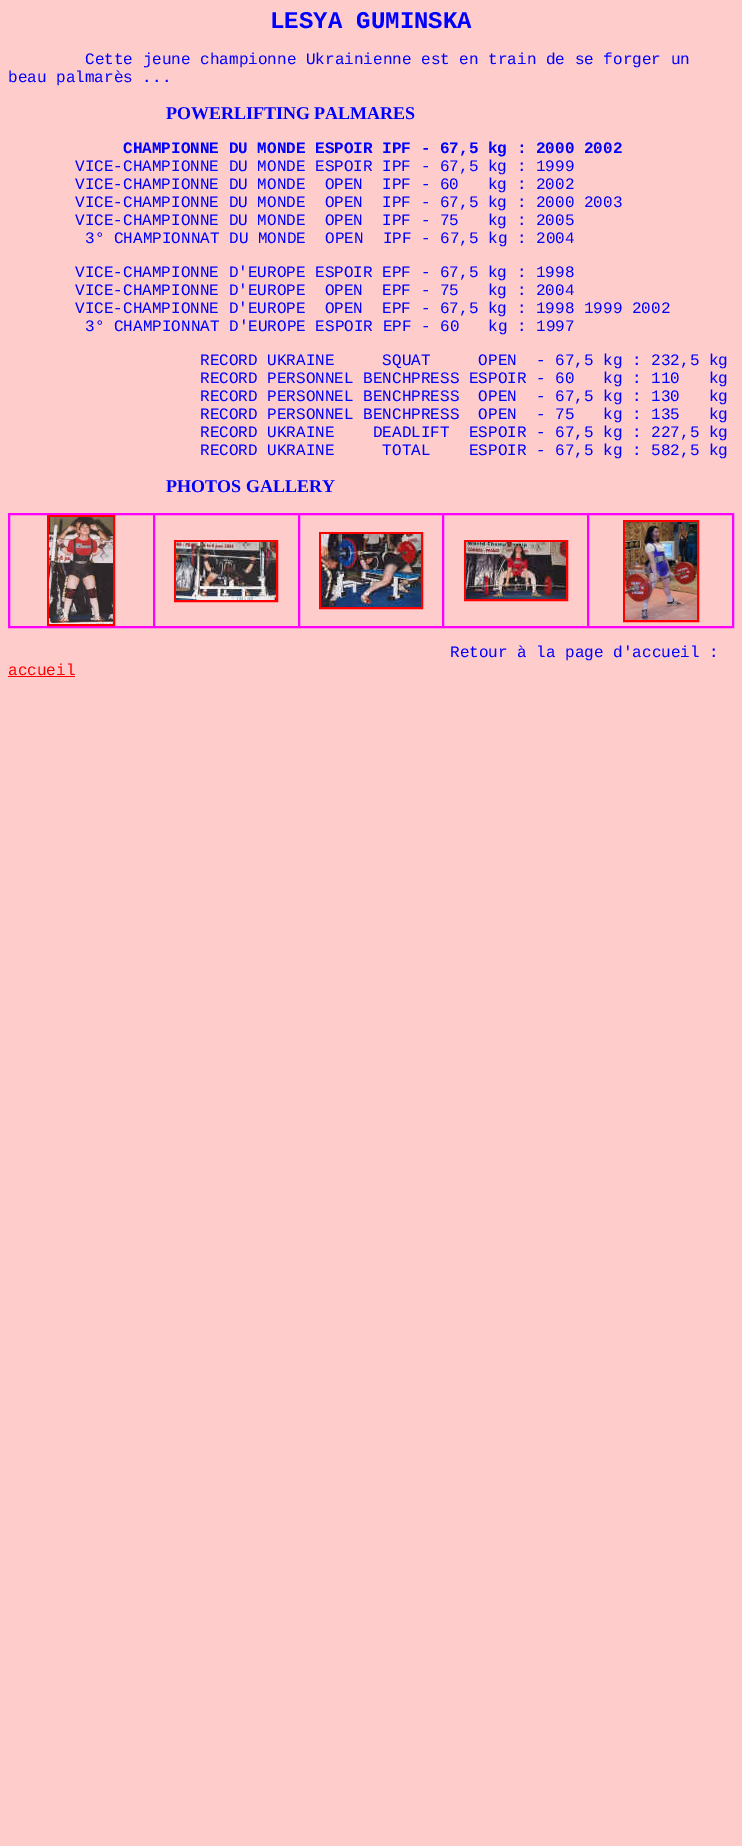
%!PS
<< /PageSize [742 1846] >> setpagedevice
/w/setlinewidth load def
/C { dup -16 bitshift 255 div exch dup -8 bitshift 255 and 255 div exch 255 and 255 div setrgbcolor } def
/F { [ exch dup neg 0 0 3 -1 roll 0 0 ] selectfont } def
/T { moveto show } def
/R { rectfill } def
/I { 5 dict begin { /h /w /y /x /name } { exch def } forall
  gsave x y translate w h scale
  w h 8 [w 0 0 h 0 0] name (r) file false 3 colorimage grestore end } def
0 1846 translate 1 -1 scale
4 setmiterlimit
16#FFCCCC C
0 0 742 1846 R
/LiberationMono-Bold 24 F
16#0000FF C
(LESYA GUMINSKA) 270 28 T
/LiberationMono-Regular 16 F
(Cette jeune championne Ukrainienne est en train de se forger un) 85 64 T
(beau palmarès ...) 8 82 T
/LiberationSerif-Bold 18 F
(POWERLIFTING PALMARES) 166 119 T
/LiberationMono-Bold 16 F
(CHAMPIONNE DU MONDE ESPOIR IPF - 67,5 kg : 2000 2002) 123 153 T
/LiberationMono-Regular 16 F
(VICE-CHAMPIONNE DU MONDE ESPOIR IPF - 67,5 kg : 1999) 75 171 T
(VICE-CHAMPIONNE DU MONDE  OPEN  IPF - 60   kg : 2002) 75 189 T
(VICE-CHAMPIONNE DU MONDE  OPEN  IPF - 67,5 kg : 2000 2003) 75 207 T
(VICE-CHAMPIONNE DU MONDE  OPEN  IPF - 75   kg : 2005) 75 225 T
(3° CHAMPIONNAT DU MONDE  OPEN  IPF - 67,5 kg : 2004) 85 243 T
(VICE-CHAMPIONNE D'EUROPE ESPOIR EPF - 67,5 kg : 1998) 75 277 T
(VICE-CHAMPIONNE D'EUROPE  OPEN  EPF - 75   kg : 2004) 75 295 T
(VICE-CHAMPIONNE D'EUROPE  OPEN  EPF - 67,5 kg : 1998 1999 2002) 75 313 T
(3° CHAMPIONNAT D'EUROPE ESPOIR EPF - 60   kg : 1997) 85 331 T
(RECORD UKRAINE     SQUAT     OPEN  - 67,5 kg : 232,5 kg) 200 365 T
(RECORD PERSONNEL BENCHPRESS ESPOIR - 60   kg : 110   kg) 200 383 T
(RECORD PERSONNEL BENCHPRESS  OPEN  - 67,5 kg : 130   kg) 200 401 T
(RECORD PERSONNEL BENCHPRESS  OPEN  - 75   kg : 135   kg) 200 419 T
(RECORD UKRAINE    DEADLIFT  ESPOIR - 67,5 kg : 227,5 kg) 200 437 T
(RECORD UKRAINE     TOTAL    ESPOIR - 67,5 kg : 582,5 kg) 200 455 T
/LiberationSerif-Bold 18 F
(PHOTOS GALLERY) 166 492 T
16#FF00FF C
8.5 513.5 725 114 rectstroke
9.5 514.5 144 112 rectstroke
16#FF0000 C
2 w
48 516 66 109 rectstroke
(1.rgb) 49 517 64 107 I
16#FF00FF C
1 w
154.5 514.5 144 112 rectstroke
16#FF0000 C
2 w
175 541 102 60 rectstroke
(2.rgb) 176 542 100 58 I
16#FF00FF C
1 w
299.5 514.5 143 112 rectstroke
16#FF0000 C
2 w
320 533 102 75 rectstroke
(3.rgb) 321 534 100 73 I
16#FF00FF C
1 w
443.5 514.5 144 112 rectstroke
16#FF0000 C
2 w
465 541 102 59 rectstroke
(4.rgb) 466 542 100 57 I
16#FF00FF C
1 w
588.5 514.5 144 112 rectstroke
16#FF0000 C
2 w
624 521 74 100 rectstroke
(5.rgb) 625 522 72 98 I
/LiberationMono-Regular 16 F
16#0000FF C
(Retour à la page d'accueil :) 450 657 T
16#FF0000 C
(accueil) 8 675 T
8 676 67 1 R
showpage
